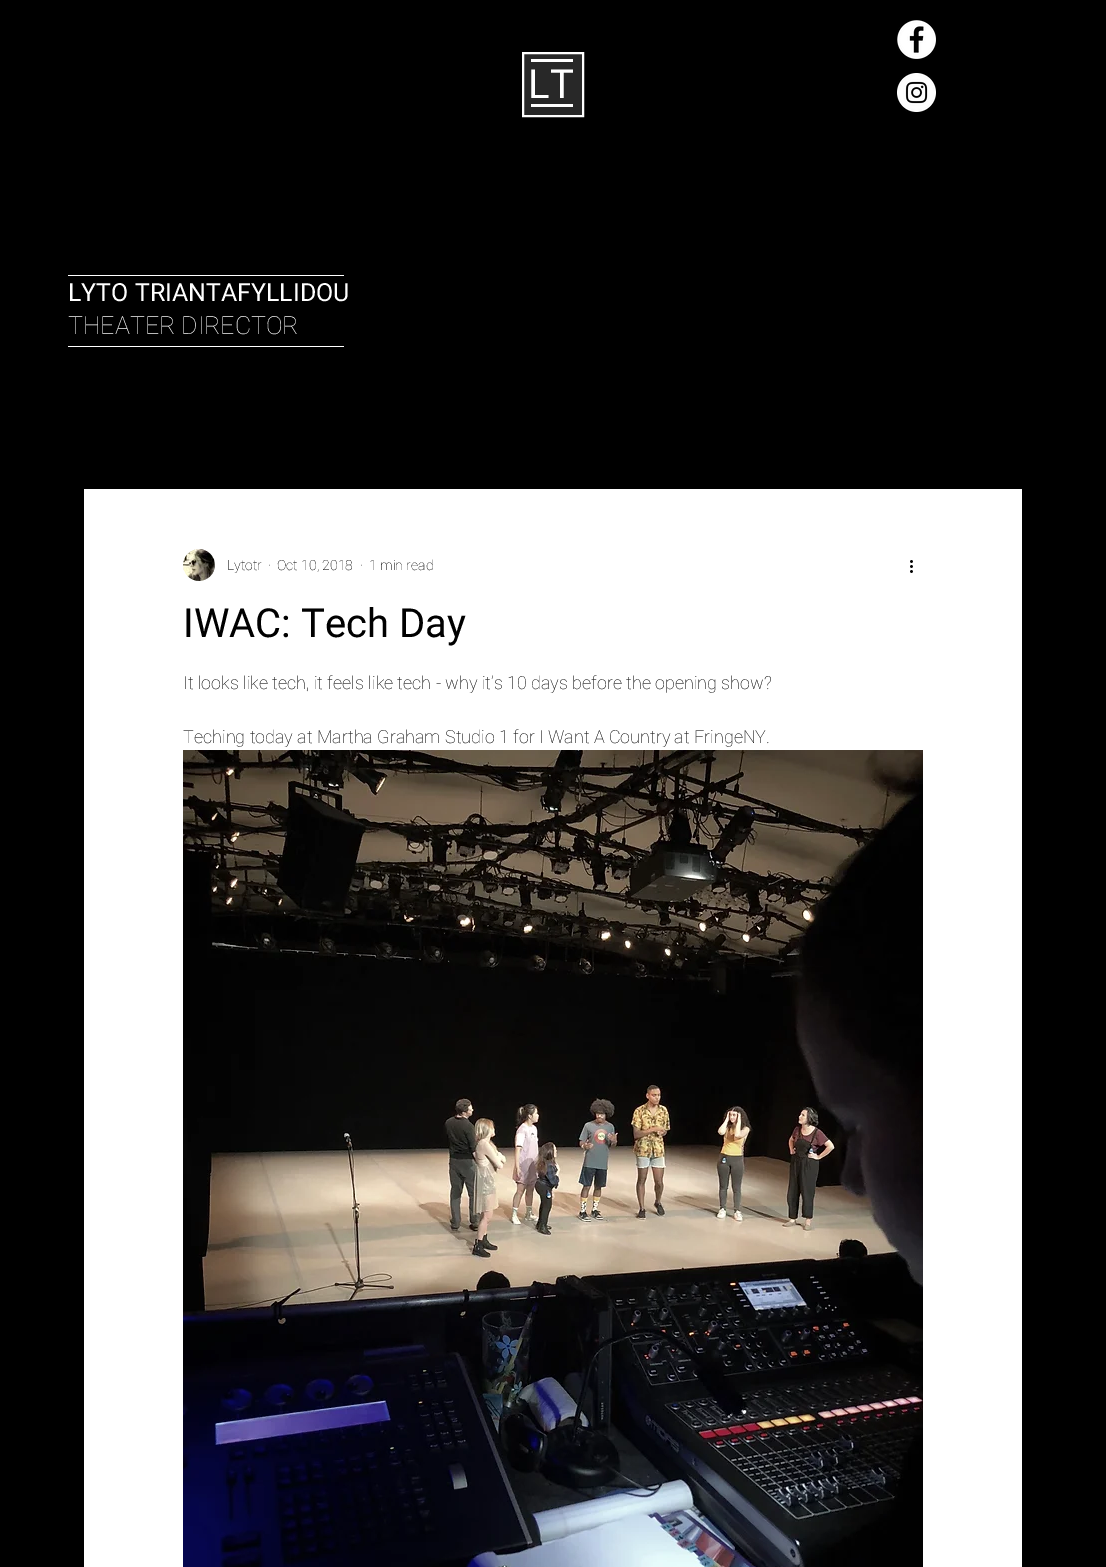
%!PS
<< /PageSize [1106 1567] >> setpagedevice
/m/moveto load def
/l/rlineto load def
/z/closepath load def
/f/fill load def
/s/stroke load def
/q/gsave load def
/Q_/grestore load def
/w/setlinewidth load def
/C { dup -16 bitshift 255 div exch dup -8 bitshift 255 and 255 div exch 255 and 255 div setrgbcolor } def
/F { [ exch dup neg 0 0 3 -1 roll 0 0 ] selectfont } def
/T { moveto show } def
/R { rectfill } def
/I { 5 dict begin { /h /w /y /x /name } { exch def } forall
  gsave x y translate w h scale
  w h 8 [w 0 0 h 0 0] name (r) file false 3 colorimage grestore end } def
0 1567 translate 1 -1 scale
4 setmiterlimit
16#000000 C
0 0 1106 1567 R
16#282828 C
523 53 m 60 0 l 0 63 l -60 0 l z q f Q_
16#FFFFFF C
2 w
s
531 59 42 3 R
/Roboto-Regular 40 F
(LT) 528 98 T
531 104 42 3 R
68 275 276 1 R
/Roboto-Regular 25 F
(LYTO TRIANTAFYLLIDOU) 68 301 T
/Roboto-Thin 25 F
(THEATER DIRECTOR) 68 334 T
68 346 276 1 R
(1.rgb) 897 20 39 39 I
(2.rgb) 897 73 39 39 I
84 489 938 1078 R
(3.rgb) 183 549 32 32 I
/Roboto-Thin 14 F
16#000000 C
(Lytotr) 227 570 T
(·) 268 570 T
(Oct 10, 2018) 277 570 T
(·) 360 570 T
(1 min read) 369 570 T
(4.rgb) 910 560 3 13 I
/Roboto-Regular 40 F
(IWAC: Tech Day) 183 637 T
/Roboto-Thin 18 F
(It looks like tech, it feels like tech - why it’s 10 days before the opening show?) 183 689 T
(Teching today at Martha Graham Studio 1 for I Want A Country at FringeNY.) 183 743 T
(5.rgb) 183 750 740 817 I
showpage
